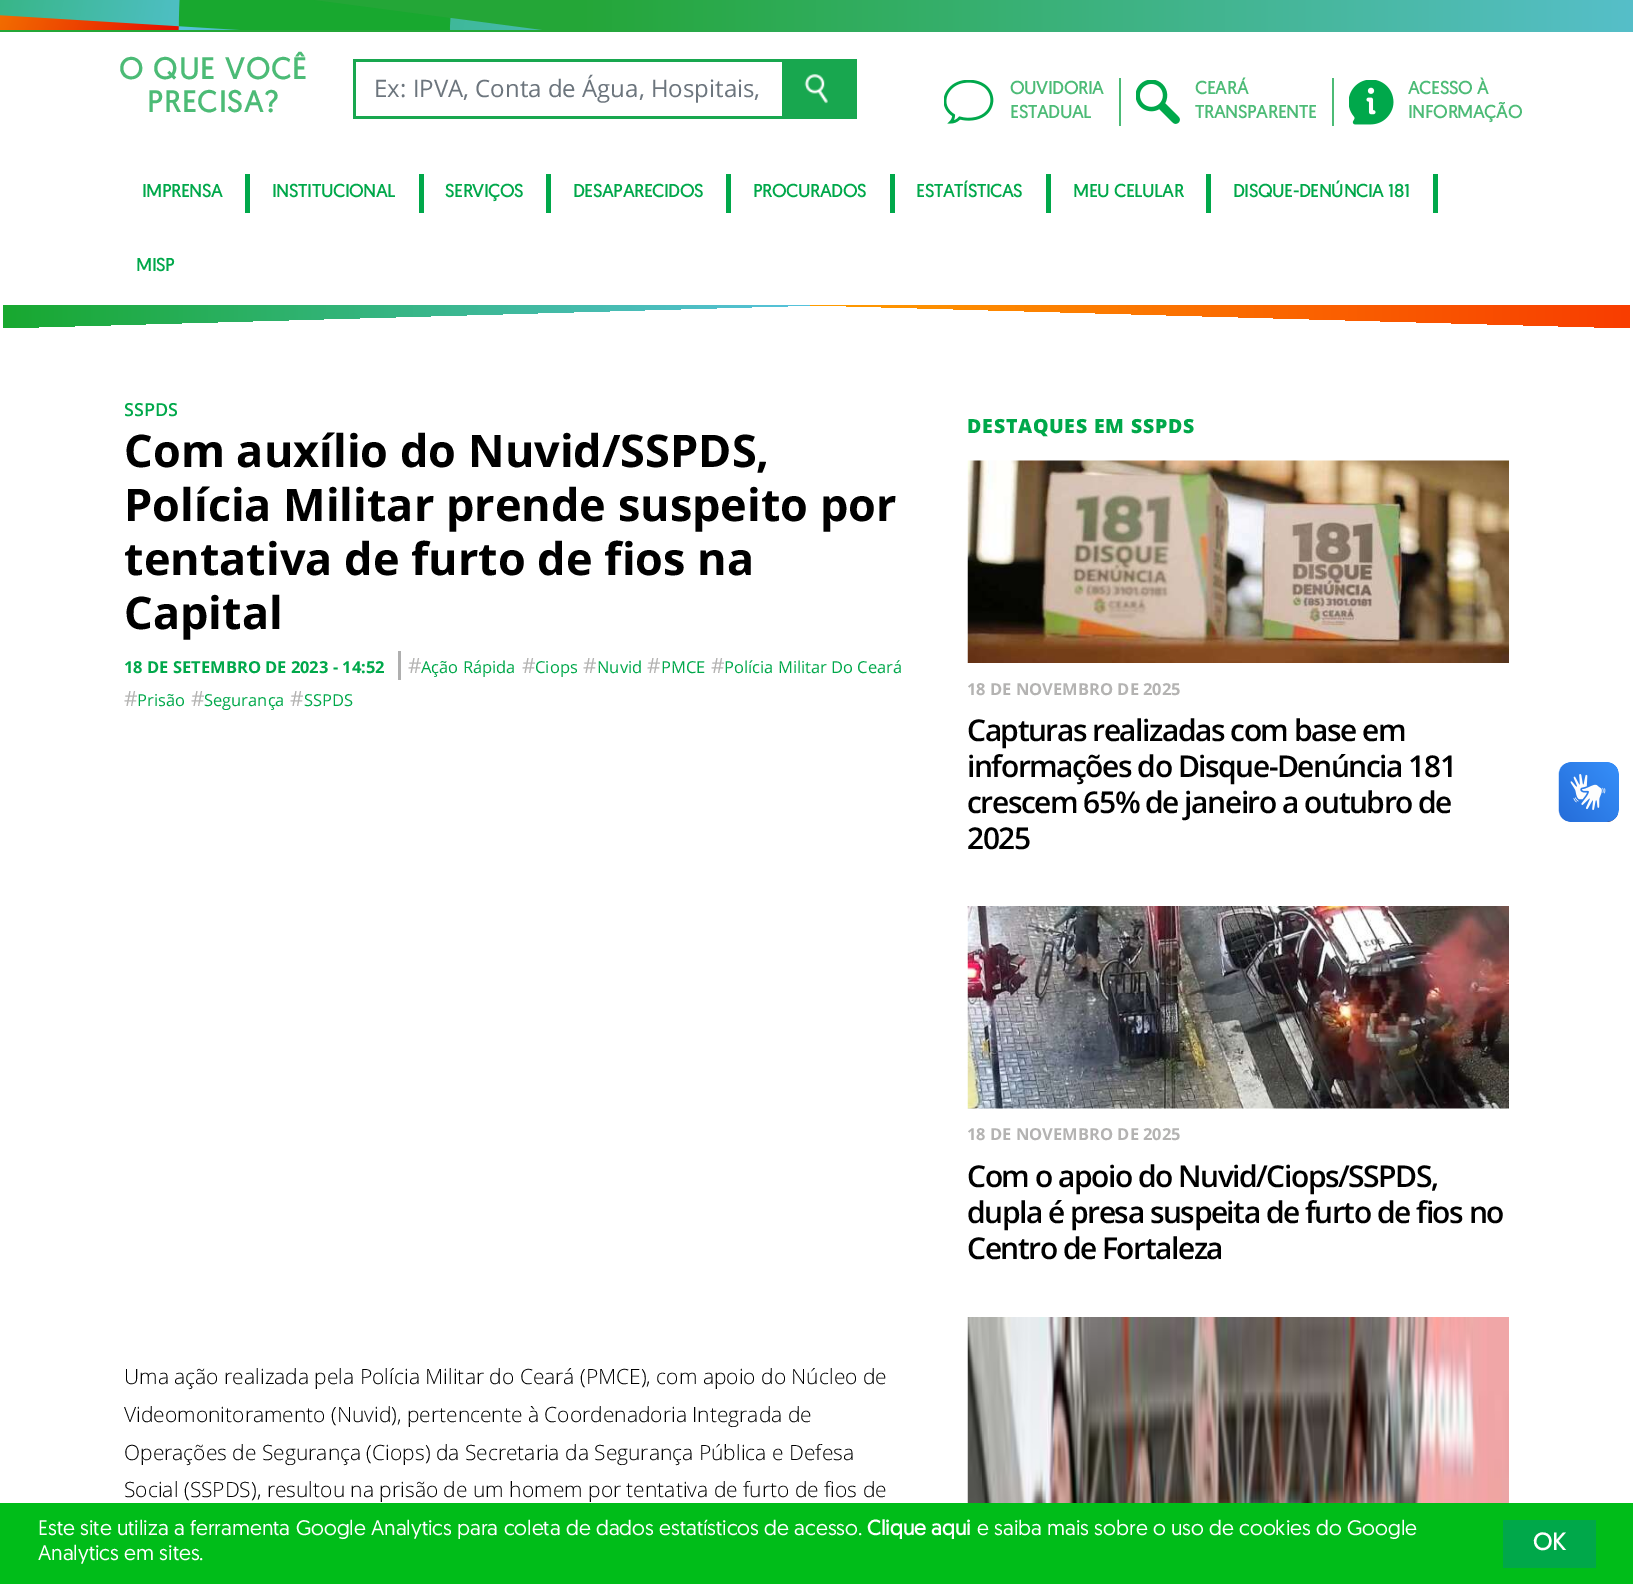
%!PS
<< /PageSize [1633 1584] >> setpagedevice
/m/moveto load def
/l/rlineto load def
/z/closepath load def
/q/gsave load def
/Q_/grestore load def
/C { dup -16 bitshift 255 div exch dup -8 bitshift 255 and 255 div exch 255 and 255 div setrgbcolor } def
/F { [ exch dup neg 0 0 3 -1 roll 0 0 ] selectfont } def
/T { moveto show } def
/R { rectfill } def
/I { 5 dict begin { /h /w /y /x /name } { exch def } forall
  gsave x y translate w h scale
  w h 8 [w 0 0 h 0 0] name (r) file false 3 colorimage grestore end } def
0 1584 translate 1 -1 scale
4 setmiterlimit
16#FFFFFF C
0 0 1633 1584 R
q 0 0 m 1633 0 l 0 32 l -1633 0 l z clip newpath
<< /ShadingType 2 /ColorSpace /DeviceRGB /Coords [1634 36 0 36] /Extend [true true] /Function << /FunctionType 3 /Domain [0 1] /Functions [<< /FunctionType 2 /Domain [0 1] /C0 [.337 .749 .788] /C1 [.141 .651 .216] /N 1 >> << /FunctionType 2 /Domain [0 1] /C0 [.141 .651 .216] /C1 [.141 .651 .216] /N 1 >>] /Bounds [.65] /Encode [0 1 0 1] >> >> shfill Q_
(1.rgb) 0 0 542 30 I
/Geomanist-Bold 30 F
16#4CBB76 C
119 79 m 1.5 0 (O QUE VOCÊ) ashow
147 112 m 1.5 0 (PRECISA?) ashow
16#18A74F C
353 59 429 3 R
353 116 429 3 R
353 59 3 60 R
/OpenSans-Regular 24 F
16#6C757D C
(Ex: IPVA, Conta de Água, Hospitais,) 374 97 T
16#18A74F C
782 59 75 60 R
(2.rgb) 804 74 24 30 I
16#4CBB76 C
1119 78 2 48 R
(3.rgb) 944 80 50 44 I
/Geomanist-Bold 18 F
(OUVIDORIA) 1010 94 T
(ESTADUAL) 1010 118 T
1332 78 2 48 R
(4.rgb) 1136 80 44 44 I
(CEARÁ) 1195 94 T
(TRANSPARENTE) 1195 118 T
(5.rgb) 1349 80 45 45 I
(ACESSO À) 1408 94 T
(INFORMAÇÃO) 1408 118 T
16#00A84A C
245 174 5 39 R
(IMPRENSA) 142 197 T
419 174 5 39 R
(INSTITUCIONAL) 272 197 T
546 174 5 39 R
(SERVIÇOS) 445 197 T
726 174 5 39 R
(DESAPARECIDOS) 573 197 T
890 174 5 39 R
(PROCURADOS) 753 197 T
1046 174 5 39 R
(ESTATÍSTICAS) 916 197 T
1206 174 5 39 R
(MEU CELULAR) 1073 197 T
1433 174 5 39 R
(DISQUE-DENÚNCIA 181) 1233 197 T
(MISP) 136 271 T
q
0 305 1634 24 rectclip
q 3 304 m 0 24 l 856 -24 l z clip newpath
<< /ShadingType 2 /ColorSpace /DeviceRGB /Coords [2.4 324 859 324] /Extend [true true] /Function << /FunctionType 2 /Domain [0 1] /C0 [.094 .659 .184] /C1 [.357 .769 .91] /N 1 >> >> shfill Q_
q 775 304 m 855 24 l 0 -24 l z clip newpath
<< /ShadingType 2 /ColorSpace /DeviceRGB /Coords [1632 309 775 309] /Extend [true true] /Function << /FunctionType 2 /Domain [0 1] /C0 [.973 .239 0] /C1 [1 .631 0] /N 1 >> >> shfill Q_
Q_
/OpenSans-SemiBold 18 F
(SSPDS) 124 416 T
/OpenSans-Bold 45 F
16#000000 C
(Com auxílio do Nuvid/SSPDS,) 124 467 T
(Polícia Militar prende suspeito por) 124 521 T
(tentativa de furto de fios na) 124 575 T
(Capital) 124 629 T
/OpenSans-Bold 16.5 F
16#00A84A C
(18 DE SETEMBRO DE 2023 - 14:52) 124 673 T
/OpenSans-Regular 21 F
16#B4B3B2 C
(#) 408 673 T
16#AFAFAF C
398 651 3 29 R
/OpenSans-Regular 16.5 F
16#00A84A C
(Ação Rápida) 421 673 T
/OpenSans-Regular 21 F
16#B4B3B2 C
(#) 522 673 T
/OpenSans-Regular 16.5 F
16#00A84A C
(Ciops) 535 673 T
/OpenSans-Regular 21 F
16#B4B3B2 C
(#) 583 673 T
/OpenSans-Regular 16.5 F
16#00A84A C
(Nuvid) 597 673 T
/OpenSans-Regular 21 F
16#B4B3B2 C
(#) 647 673 T
/OpenSans-Regular 16.5 F
16#00A84A C
(PMCE) 661 673 T
/OpenSans-Regular 21 F
16#B4B3B2 C
(#) 711 673 T
/OpenSans-Regular 16.5 F
16#00A84A C
(Polícia Militar Do Ceará) 724 673 T
/OpenSans-Regular 21 F
16#B4B3B2 C
(#) 124 706 T
/OpenSans-Regular 16.5 F
16#00A84A C
(Prisão) 137 706 T
/OpenSans-Regular 21 F
16#B4B3B2 C
(#) 191 706 T
/OpenSans-Regular 16.5 F
16#00A84A C
(Segurança) 204 706 T
/OpenSans-Regular 21 F
16#B4B3B2 C
(#) 290 706 T
/OpenSans-Regular 16.5 F
16#00A84A C
(SSPDS) 304 706 T
/OpenSans-Light 21 F
16#000000 C
(Uma ação realizada pela Polícia Militar do Ceará \(PMCE\), com apoio do Núcleo de) 124 1384 T
(Videomonitoramento \(Nuvid\), pertencente à Coordenadoria Integrada de) 124 1422 T
(Operações de Segurança \(Ciops\) da Secretaria da Segurança Pública e Defesa) 124 1460 T
(Social \(SSPDS\), resultou na prisão de um homem por tentativa de furto de fios de) 124 1497 T
/OpenSans-ExtraBold 19.5 F
16#00A84A C
967 433 m .75 0 (DESTAQUES EM SSPDS) ashow
(6.rgb) 967 460 542 203 I
/OpenSans-Bold 16.5 F
16#B4B3B2 C
(18 DE NOVEMBRO DE 2025) 967 695 T
/OpenSans-SemiBold 30 F
16#000000 C
967 741 m -1.5 0 (Capturas realizadas com base em) ashow
967 777 m -1.5 0 (informações do Disque-Denúncia 181) ashow
967 813 m -1.5 0 (crescem 65% de janeiro a outubro de) ashow
967 849 m -1.5 0 (2025) ashow
(7.rgb) 967 906 542 203 I
/OpenSans-Bold 16.5 F
16#B4B3B2 C
(18 DE NOVEMBRO DE 2025) 967 1140 T
/OpenSans-SemiBold 30 F
16#000000 C
967 1187 m -1.5 0 (Com o apoio do Nuvid/Ciops/SSPDS,) ashow
967 1223 m -1.5 0 (dupla é presa suspeita de furto de fios no) ashow
967 1259 m -1.5 0 (Centro de Fortaleza) ashow
(8.rgb) 967 1317 542 186 I
(9.rgb) 1558 762 61 60 I
(10.rgb) 1559 762 60 60 I
16#00BD19 C
0 1503 1633 81 R
/Geomanist-Regular 21 F
16#FFFFFF C
(Este site utiliza a ferramenta Google Analytics para coleta de dados estatísticos de acesso.) 38 1535 T
/Geomanist-Bold 21 F
(Clique aqui) 867 1535 T
/Geomanist-Regular 21 F
(e saiba mais sobre o uso de cookies do Google) 977 1535 T
(Analytics em sites.) 38 1560 T
16#00A84A C
1503 1520 93 48 R
/Geomanist-Bold 24 F
16#FFFFFF C
(OK) 1533 1550 T
showpage
